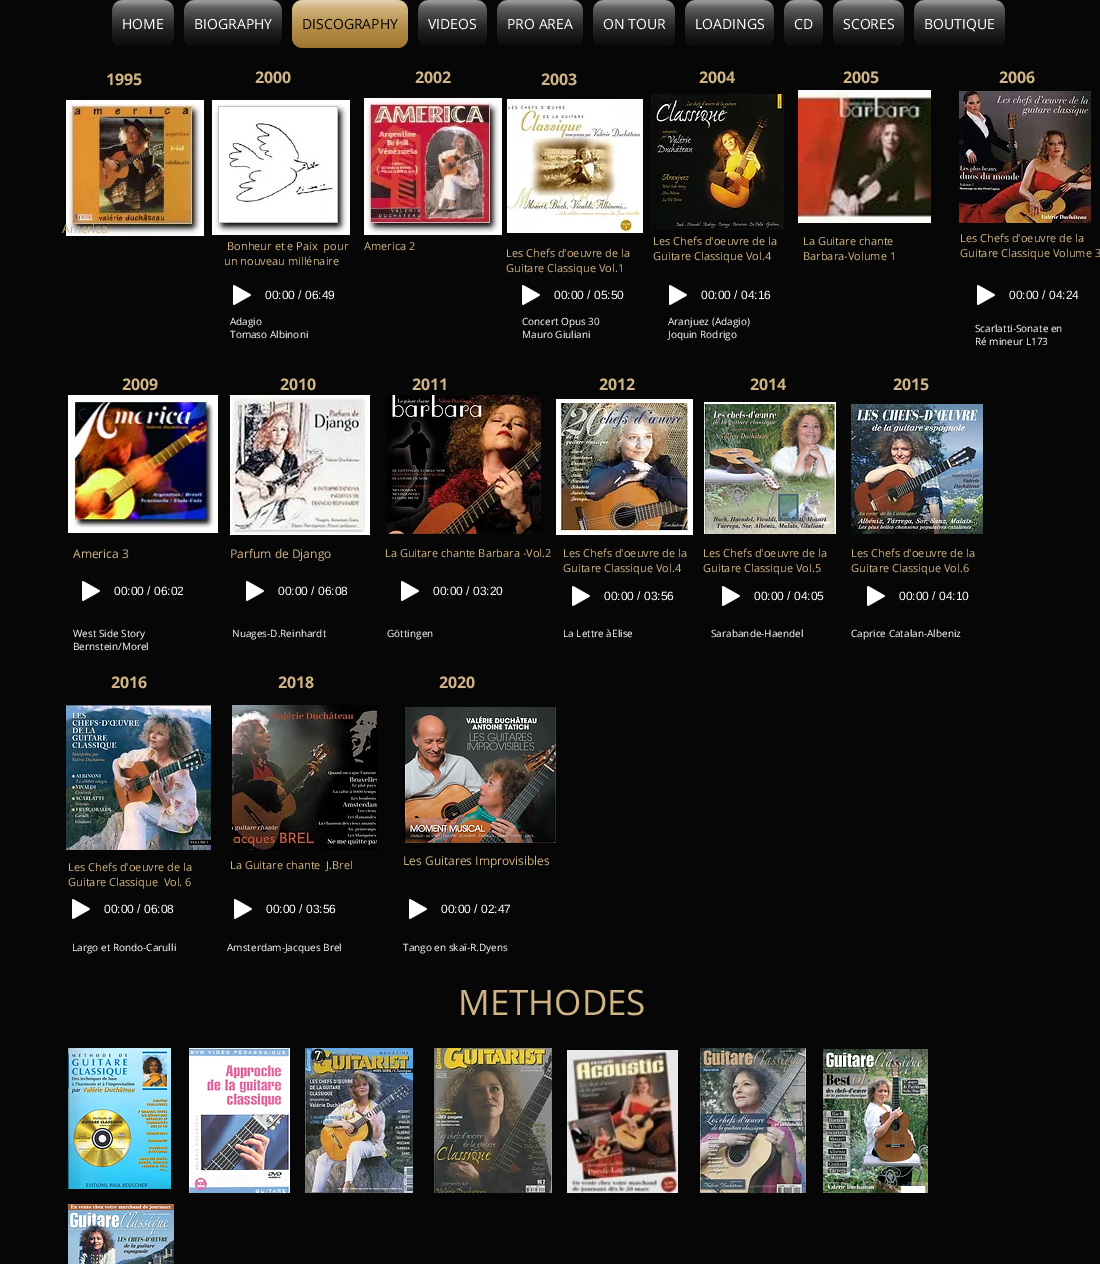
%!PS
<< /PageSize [1100 1264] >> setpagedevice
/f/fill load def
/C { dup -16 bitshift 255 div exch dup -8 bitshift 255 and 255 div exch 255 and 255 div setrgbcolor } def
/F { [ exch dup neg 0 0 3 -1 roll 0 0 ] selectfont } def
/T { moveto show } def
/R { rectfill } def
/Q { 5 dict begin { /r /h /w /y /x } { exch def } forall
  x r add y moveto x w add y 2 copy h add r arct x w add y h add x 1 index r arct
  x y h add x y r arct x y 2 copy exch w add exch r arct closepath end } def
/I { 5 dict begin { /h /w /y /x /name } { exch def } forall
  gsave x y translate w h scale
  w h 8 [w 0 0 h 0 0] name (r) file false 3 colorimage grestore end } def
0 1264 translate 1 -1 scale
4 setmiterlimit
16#070606 C
0 0 1100 1264 R
(1.rgb) 112 0 62 46 I
/OpenSans-Regular 14 F
16#FFFFFF C
(HOME) 122 29 T
(2.rgb) 184 0 98 46 I
(BIOGRAPHY) 194 29 T
16#B78837 C
292 0 116 48 10 Q f
(3.rgb) 292 0 116 46 I
(4.rgb) 292 14 116 34 I
16#070606 C
(DISCOGRAPHY) 302 29 T
(5.rgb) 418 0 69 46 I
16#FFFFFF C
(VIDEOS) 428 29 T
(6.rgb) 497 0 86 46 I
(PRO AREA) 507 29 T
(7.rgb) 593 0 82 46 I
(ON TOUR) 603 29 T
(8.rgb) 685 0 89 46 I
(LOADINGS) 695 29 T
(9.rgb) 784 0 39 46 I
(CD) 794 29 T
(10.rgb) 833 0 71 46 I
(SCORES) 843 29 T
(11.rgb) 914 0 91 46 I
(BOUTIQUE) 924 29 T
/OpenSans-Bold 16 F
16#CFB486 C
(1995) 106 85 T
(2000) 255 83 T
(2002) 415 83 T
(2003) 541 85 T
(2004) 699 83 T
(2005) 843 83 T
(2006) 999 83 T
(12.rgb) 66 100 138 136 I
(13.rgb) 212 100 138 135 I
(14.rgb) 364 98 138 137 I
(15.rgb) 507 99 136 134 I
(16.rgb) 651 94 133 136 I
(17.rgb) 798 90 133 133 I
(18.rgb) 959 91 132 132 I
/OpenSans-Regular 12 F
(America) 62 233 T
/OpenSans-Regular 11 F
(Bonheur et e Paix  pour) 227 250 T
(un nouveau millénaire) 224 265 T
(America 2) 364 250 T
(Les Chefs d'oeuvre de la) 653 245 T
(Guitare Classique Vol.4) 653 260 T
(La Guitare chante) 803 245 T
(Barbara-Volume 1) 803 260 T
(Les Chefs d'oeuvre de la) 960 242 T
(Guitare Classique Volume 3) 960 257 T
(Les Chefs d'oeuvre de la) 506 257 T
(Guitare Classique Vol.1) 506 272 T
(19.rgb) 233 285 18 20 I
/LiberationSans-Regular 12 F
16#FFFFFF C
(00:00 / 06:49) 265 299 T
(19.rgb) 522 285 18 20 I
(00:00 / 05:50) 554 299 T
(19.rgb) 669 285 18 20 I
(00:00 / 04:16) 701 299 T
(19.rgb) 977 285 18 20 I
(00:00 / 04:24) 1009 299 T
/OpenSans-Regular 10 F
(Adagio) 230 325 T
(Tomaso Albinoni) 230 338 T
(Concert Opus 30) 522 325 T
(Mauro Giuliani) 522 338 T
(Aranjuez \(Adagio\)) 668 325 T
(Joquin Rodrigo) 668 338 T
(Scarlatti-Sonate en) 975 332 T
(Ré mineur L173) 975 345 T
/OpenSans-Bold 16 F
16#CFB486 C
(2009) 122 390 T
(2010) 280 390 T
(2011) 412 390 T
(2012) 599 390 T
(2014) 750 390 T
(2015) 893 390 T
(20.rgb) 68 395 150 138 I
(21.rgb) 230 395 140 140 I
(22.rgb) 387 395 154 139 I
(23.rgb) 556 399 137 136 I
(24.rgb) 704 402 132 132 I
(25.rgb) 851 404 132 130 I
/OpenSans-Regular 12 F
(America 3) 73 558 T
(Parfum de Django) 230 558 T
/OpenSans-Regular 11 F
(La Guitare chante Barbara -Vol.2) 385 557 T
(Les Chefs d'oeuvre de la) 563 557 T
(Guitare Classique Vol.4) 563 572 T
(Les Chefs d'oeuvre de la) 703 557 T
(Guitare Classique Vol.5) 703 572 T
(Les Chefs d'oeuvre de la) 851 557 T
(Guitare Classique Vol.6) 851 572 T
(19.rgb) 82 581 18 20 I
/LiberationSans-Regular 12 F
16#FFFFFF C
(00:00 / 06:02) 114 595 T
(19.rgb) 246 581 18 20 I
(00:00 / 06:08) 278 595 T
(19.rgb) 401 581 18 20 I
(00:00 / 03:20) 433 595 T
(19.rgb) 572 586 18 20 I
(00:00 / 03:56) 604 600 T
(19.rgb) 722 586 18 20 I
(00:00 / 04:05) 754 600 T
(19.rgb) 867 586 18 20 I
(00:00 / 04:10) 899 600 T
/OpenSans-Regular 10 F
(West Side Story) 73 637 T
(Bernstein/Morel) 73 650 T
(Nuages-D.Reinhardt) 232 637 T
(Göttingen) 387 637 T
(La Lettre àElise) 563 637 T
(Sarabande-Haendel) 711 637 T
(Caprice Catalan-Albeniz) 851 637 T
/OpenSans-Bold 16 F
16#CFB486 C
(2016) 111 688 T
(2018) 278 688 T
(2020) 439 688 T
(26.rgb) 66 705 145 145 I
(27.rgb) 232 705 145 145 I
(28.rgb) 403 707 153 136 I
/OpenSans-Regular 11 F
(Les Chefs d'oeuvre de la) 68 871 T
(Guitare Classique  Vol. 6) 68 886 T
(La Guitare chante  J.Brel) 230 869 T
/OpenSans-Regular 12 F
(Les Guitares Improvisibles) 403 865 T
(19.rgb) 72 899 18 20 I
/LiberationSans-Regular 12 F
16#FFFFFF C
(00:00 / 06:08) 104 913 T
(19.rgb) 234 899 18 20 I
(00:00 / 03:56) 266 913 T
(19.rgb) 409 899 18 20 I
(00:00 / 02:47) 441 913 T
/OpenSans-Regular 10 F
(Largo et Rondo-Carulli) 72 951 T
(Amsterdam-Jacques Brel) 227 951 T
(Tango en skaï-R.Dyens) 403 951 T
/OpenSans-Regular 35 F
16#CFB486 C
(METHODES) 458 1015 T
(29.rgb) 68 1048 103 141 I
(30.rgb) 189 1048 101 145 I
(31.rgb) 305 1048 108 145 I
(32.rgb) 434 1048 118 145 I
(33.rgb) 567 1050 111 143 I
(34.rgb) 700 1048 106 145 I
(35.rgb) 823 1049 105 144 I
(36.rgb) 68 1204 106 60 I
showpage
